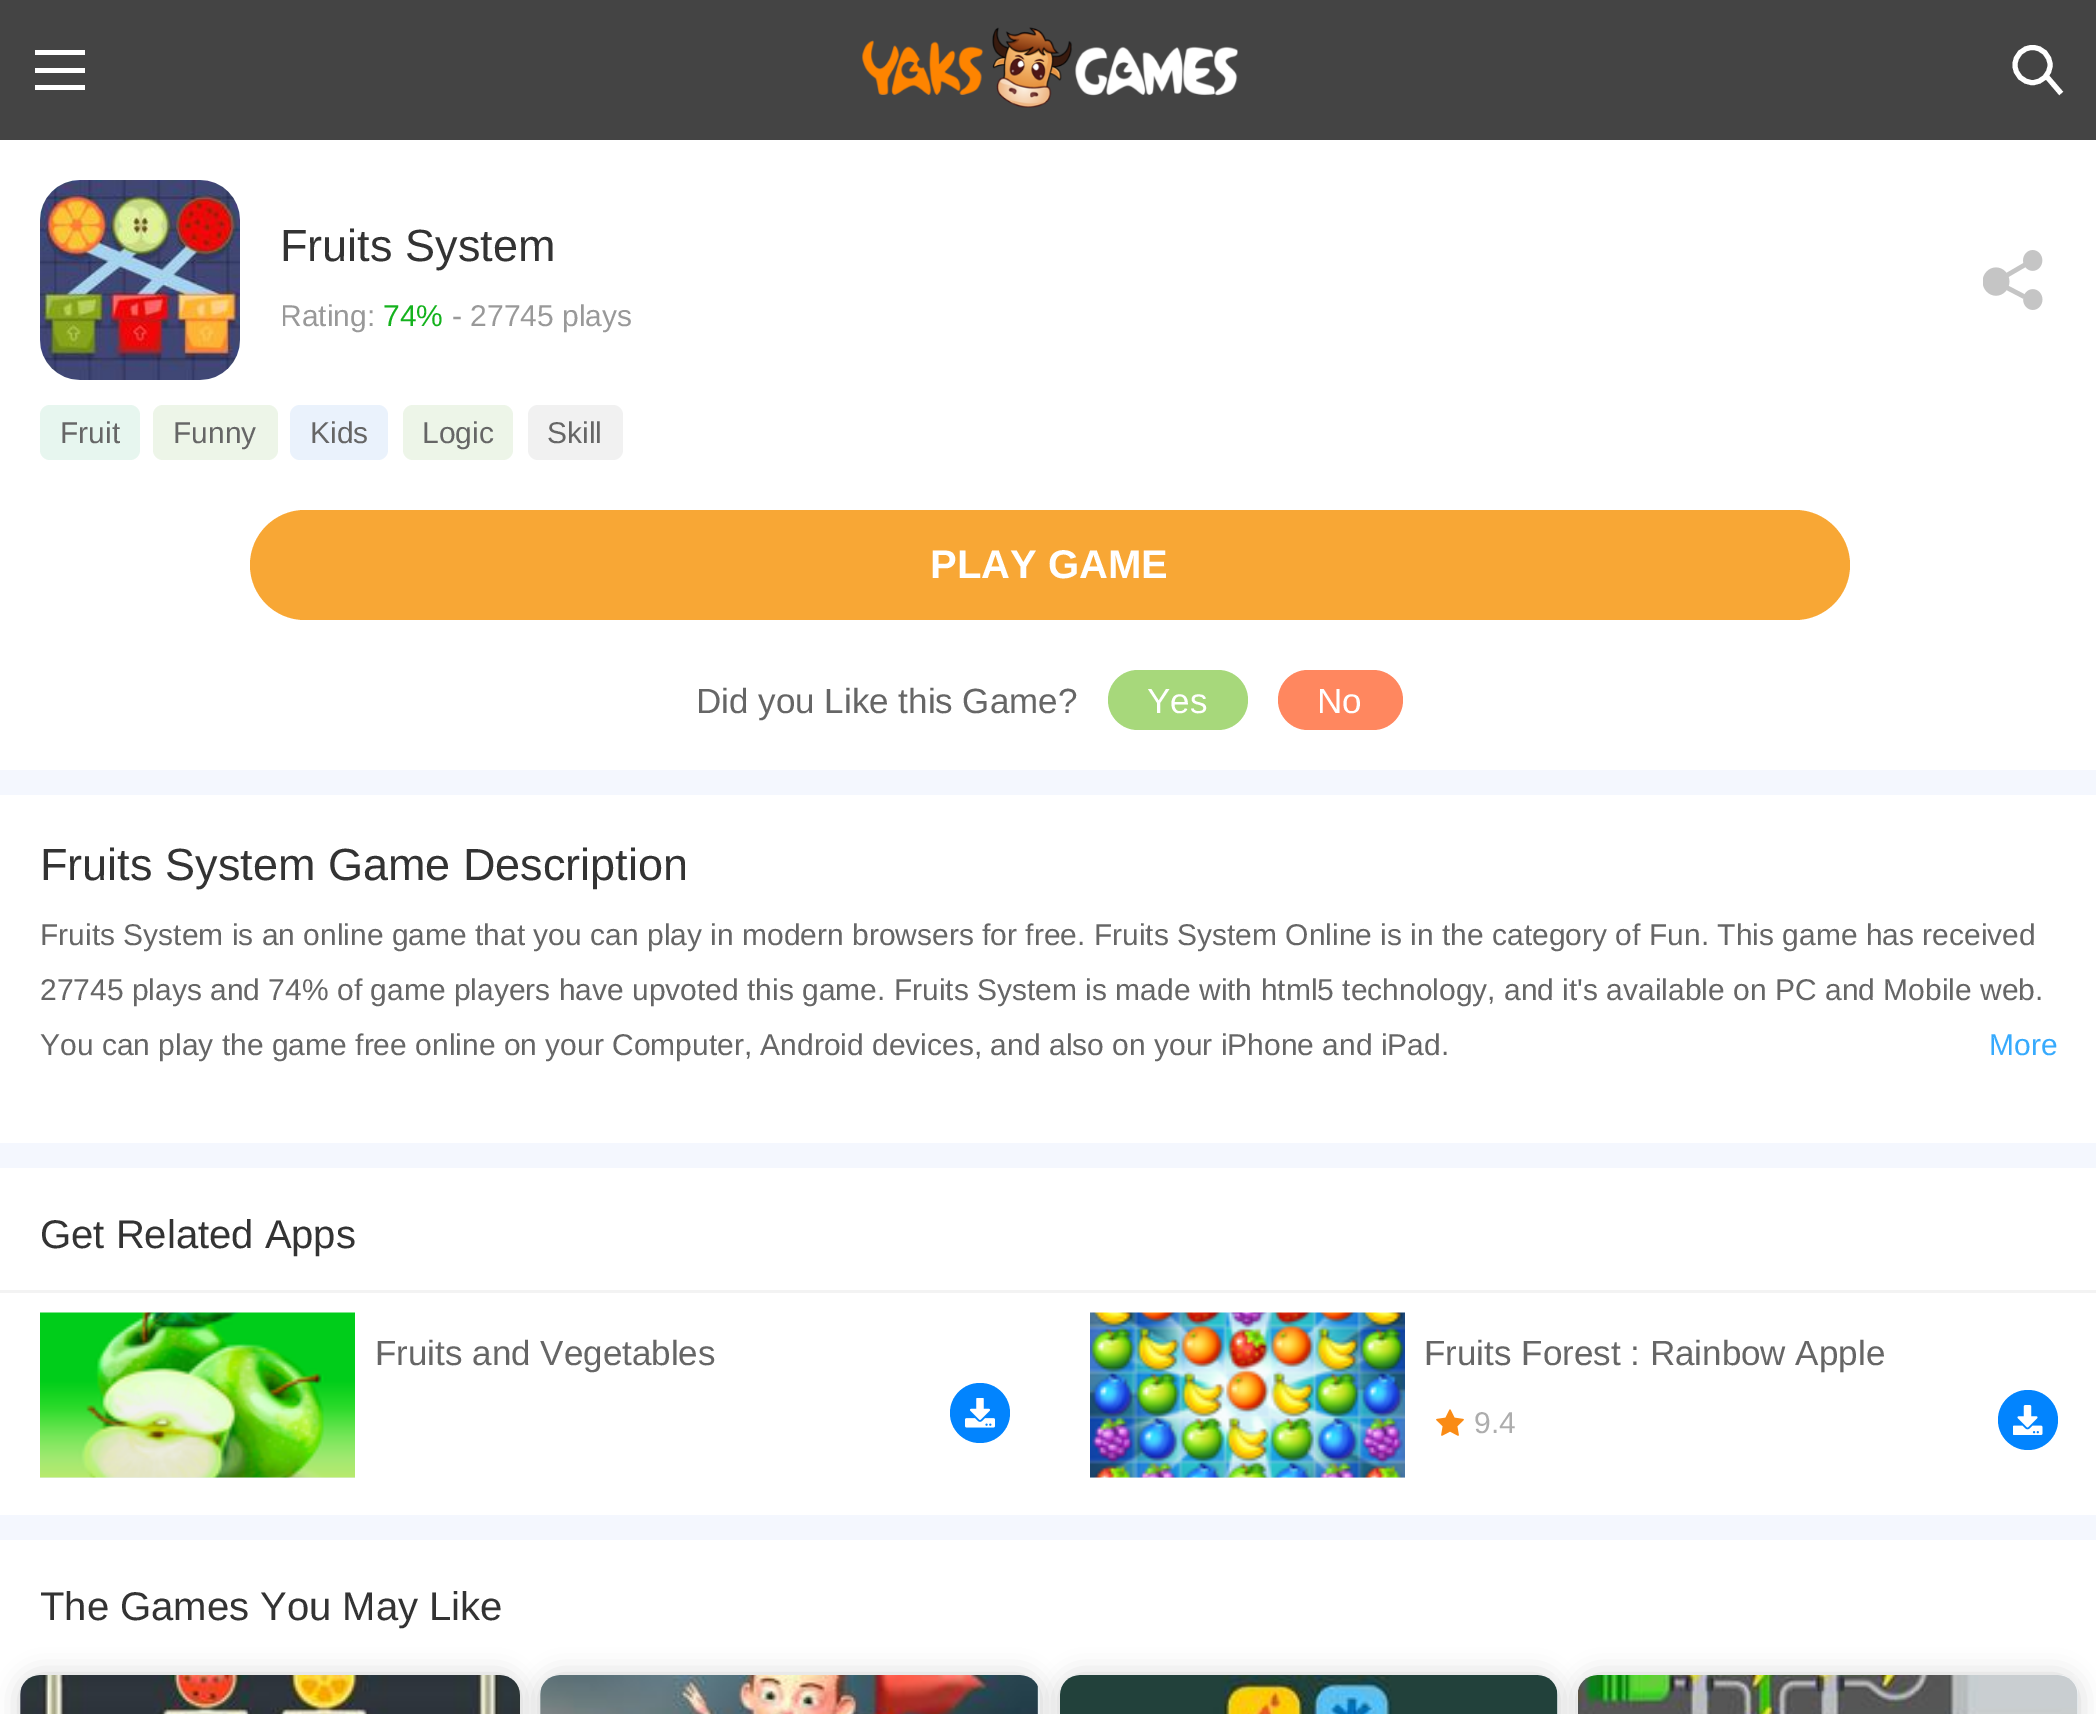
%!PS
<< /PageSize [2096 1714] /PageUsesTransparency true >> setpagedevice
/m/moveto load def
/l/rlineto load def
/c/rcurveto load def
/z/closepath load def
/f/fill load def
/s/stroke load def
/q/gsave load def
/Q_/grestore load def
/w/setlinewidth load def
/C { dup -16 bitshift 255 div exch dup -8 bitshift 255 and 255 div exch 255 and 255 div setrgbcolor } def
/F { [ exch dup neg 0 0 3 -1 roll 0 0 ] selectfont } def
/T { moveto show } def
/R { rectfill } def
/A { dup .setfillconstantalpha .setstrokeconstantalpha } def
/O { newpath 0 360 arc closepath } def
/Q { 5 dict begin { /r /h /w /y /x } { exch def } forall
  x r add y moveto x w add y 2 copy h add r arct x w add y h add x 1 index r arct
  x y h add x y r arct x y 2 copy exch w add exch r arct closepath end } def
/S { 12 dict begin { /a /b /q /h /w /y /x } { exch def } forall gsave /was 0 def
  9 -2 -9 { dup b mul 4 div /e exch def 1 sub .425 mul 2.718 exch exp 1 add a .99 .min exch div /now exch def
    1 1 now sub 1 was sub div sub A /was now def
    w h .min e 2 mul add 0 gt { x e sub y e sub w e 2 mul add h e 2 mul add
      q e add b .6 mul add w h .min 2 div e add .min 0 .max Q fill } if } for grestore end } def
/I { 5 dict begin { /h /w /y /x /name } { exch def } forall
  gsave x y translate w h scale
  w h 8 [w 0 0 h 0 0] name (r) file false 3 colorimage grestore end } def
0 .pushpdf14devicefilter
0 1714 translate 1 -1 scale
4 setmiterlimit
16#F4F7FE C
0 0 2096 1714 R
16#444444 C
0 0 2096 140 R
16#FFFFFF C
35 50 50 5 R
35 68 50 5 R
35 85 50 5 R
(1.rgb) 862 27 376 81 I
5 w
2032.5 65 17.5 O s
2 setlinecap
2047.5 77.5 m 12 14 l s
0 140 2096 630 R
16#E9EFF2 C
40 180 200 200 40 Q f
(2.rgb) 40 180 200 200 I
/LiberationSans-Regular 45 F
16#333333 C
(Fruits System) 280 261 T
q
283 290 1677 55 rectclip
/LiberationSans-Regular 30 F
16#999999 C
(Rating:) 280 326 T
Q_
/LiberationSans-Regular 30 F
16#14B21D C
(74%) 383 326 T
16#999999 C
(- 27745 plays) 452 326 T
(3.rgb) 1983 250 60 60 I
16#E7F6EF C
40 405 100 55 10 Q f
16#666666 C
(Fruit) 60 443 T
16#EDF5E8 C
153 405 125 55 10 Q f
16#666666 C
(Funny) 173 443 T
16#EAF2FC C
290 405 98 55 10 Q f
16#666666 C
(Kids) 310 443 T
16#EDF5E8 C
403 405 110 55 10 Q f
16#666666 C
(Logic) 422 443 T
16#F1F1F1 C
528 405 95 55 10 Q f
16#666666 C
(Skill) 547 443 T
16#F8A735 C
250 510 1600 110 55 Q f
/LiberationSans-Bold 40 F
16#FFFFFF C
(PLAY GAME) 930 578 T
/LiberationSans-Regular 35 F
16#666666 C
(Did you Like this Game?) 696 713 T
16#A7D87B C
1108 670 140 60 30 Q f
16#FFFFFF C
(Yes) 1147 713 T
16#FF875F C
1278 670 125 60 30 Q f
16#FFFFFF C
(No) 1317 713 T
0 795 2096 348 R
/LiberationSans-Regular 45 F
16#333333 C
(Fruits System Game Description) 40 880 T
/LiberationSans-Regular 30 F
16#666666 C
(Fruits System is an online game that you can play in modern browsers for free. Fruits System Online is in the category of Fun. This game has received) 40 945 T
(27745 plays and 74% of game players have upvoted this game. Fruits System is made with html5 technology, and it's available on PC and Mobile web.) 40 1000 T
(You can play the game free online on your Computer, Android devices, and also on your iPhone and iPad.) 40 1055 T
16#37AAFD C
(More) 1989 1055 T
16#FFFFFF C
0 1168 2096 347 R
16#F3F3F3 C
0 1290 2096 3 R
/LiberationSans-Regular 40 F
16#333333 C
(Get Related Apps) 40 1248 T
16#E9EFF2 C
40 1477 315 1 R
(4.rgb) 40 1312 315 166 I
/LiberationSans-Regular 35 F
16#666666 C
(Fruits and Vegetables) 375 1365 T
16#0284FE C
980 1413 30 O f
(5.rgb) 965 1398 30 30 I
16#E9EFF2 C
1090 1477 315 1 R
(6.rgb) 1090 1312 315 166 I
16#666666 C
(Fruits Forest : Rainbow Apple) 1424 1365 T
(7.rgb) 1436 1409 28 27 I
/LiberationSans-Regular 30 F
16#ADADAD C
(9.4) 1474 1433 T
16#0284FE C
2028 1420 30 O f
(8.rgb) 2013 1405 30 30 I
16#FFFFFF C
0 1540 2096 174 R
/LiberationSans-Regular 40 F
16#333333 C
(The Games You May Like) 40 1620 T
16#000000 C
20 1675 500 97 20 12.5 .17 S
540 1675 500 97 20 12.5 .17 S
16#E9EFF2 C
40 1675 m 460 0 l 11 0 20 9 20 20 c 0 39 l -500 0 l 0 -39 l 0 -11 9 -20 20 -20 c z f
(9.rgb) 20 1675 500 39 I
16#000000 C
1060 1675 498 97 20 12.5 .17 S
16#E9EFF2 C
560 1675 m 460 0 l 11 0 20 9 20 20 c 0 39 l -500 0 l 0 -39 l 0 -11 9 -20 20 -20 c z f
(10.rgb) 540 1675 498 39 I
16#000000 C
1578 1675 500 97 20 12.5 .17 S
16#E9EFF2 C
1080 1675 m 458 0 l 11 0 20 9 20 20 c 0 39 l -498 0 l 0 -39 l 0 -11 9 -20 20 -20 c z f
(11.rgb) 1060 1675 498 39 I
1598 1675 m 460 0 l 11 0 20 9 20 20 c 0 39 l -500 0 l 0 -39 l 0 -11 9 -20 20 -20 c z f
(12.rgb) 1577 1675 501 39 I
.poppdf14devicefilter showpage
